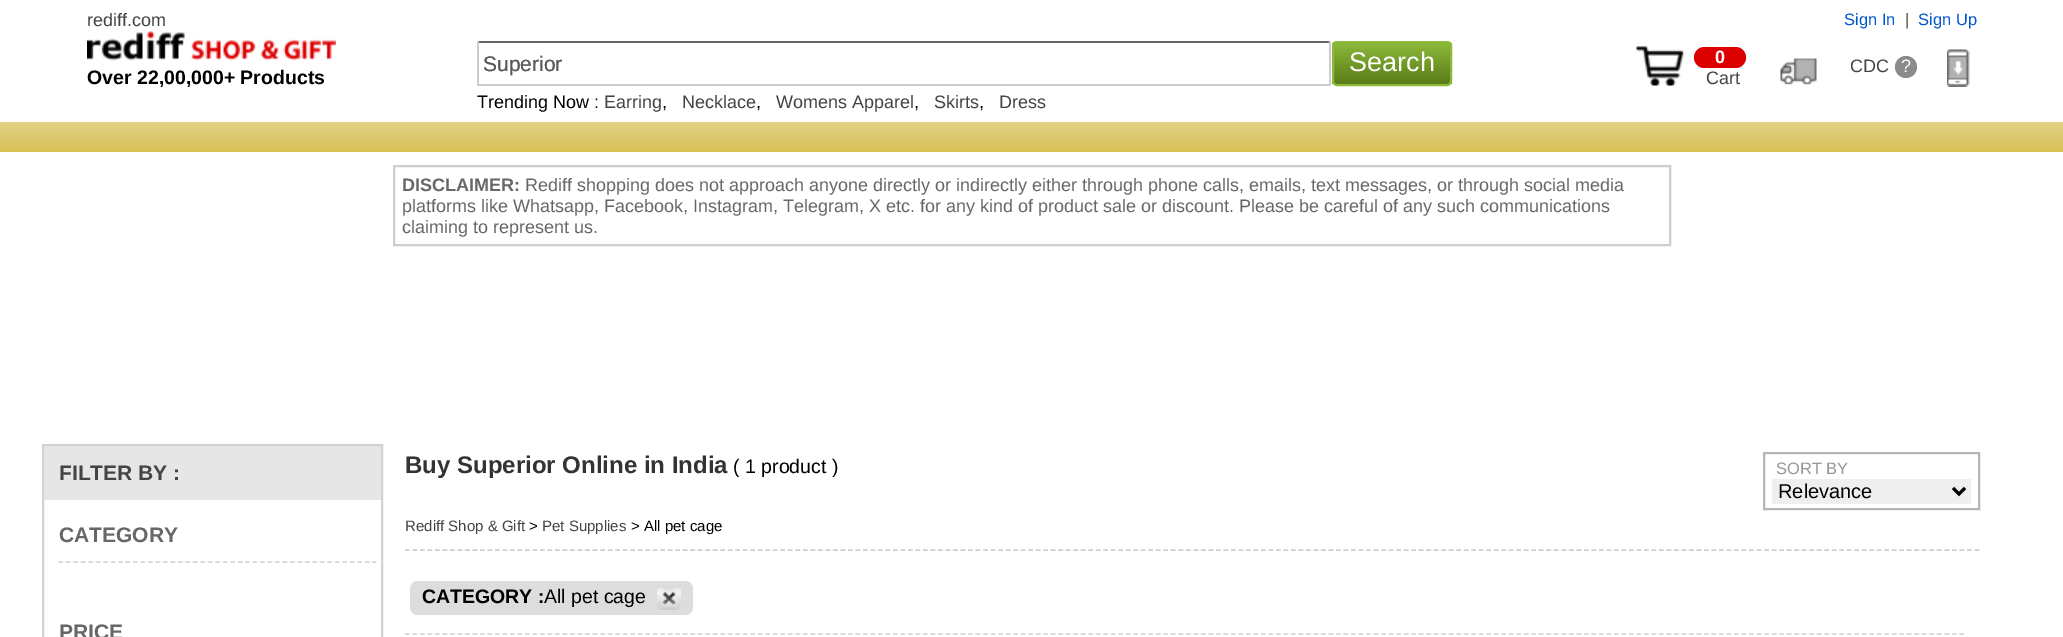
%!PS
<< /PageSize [2063 637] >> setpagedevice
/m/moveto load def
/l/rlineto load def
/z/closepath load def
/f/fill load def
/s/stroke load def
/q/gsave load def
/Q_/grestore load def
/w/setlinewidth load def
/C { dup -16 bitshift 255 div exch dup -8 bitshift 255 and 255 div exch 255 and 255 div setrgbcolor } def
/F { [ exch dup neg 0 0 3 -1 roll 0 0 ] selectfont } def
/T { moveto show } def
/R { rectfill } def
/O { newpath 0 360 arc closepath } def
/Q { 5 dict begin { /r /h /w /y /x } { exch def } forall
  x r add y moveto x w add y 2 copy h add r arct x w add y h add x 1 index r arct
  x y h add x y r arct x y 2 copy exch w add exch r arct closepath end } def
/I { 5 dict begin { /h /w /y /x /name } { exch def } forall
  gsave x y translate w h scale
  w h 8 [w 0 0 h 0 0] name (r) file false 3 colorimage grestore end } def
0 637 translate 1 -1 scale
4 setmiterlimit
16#FFFFFF C
0 0 2063 637 R
/LiberationSans-Regular 18 F
16#444444 C
(rediff.com) 87 26 T
/LiberationSans-Regular 16.5 F
16#0055CC C
(Sign In) 1844 25 T
16#4A462D C
(|) 1905 25 T
16#0055CC C
(Sign Up) 1918 25 T
(1.rgb) 87 31 249 30 I
/LiberationSans-Bold 19.5 F
16#000000 C
(Over 22,00,000+ Products) 87 84 T
16#656565 C
477 41 854 2 R
/LiberationSans-Regular 21 F
16#808080 C
(Superior) 483 71 T
q
1332 41 120 45 5 Q clip newpath
q 1332 42 m 120 0 l 0 42 l -120 0 l z clip newpath
<< /ShadingType 2 /ColorSpace /DeviceRGB /Coords [1392 42 1392 84] /Extend [true true] /Function << /FunctionType 2 /Domain [0 1] /C0 [.553 .729 .227] /C1 [.349 .486 .094] /N 1 >> >> shfill Q_
Q_
16#8DBA3A C
2 w
1333 42 118 43 4 Q s
/LiberationSans-Regular 27 F
16#FFFFFF C
(Search) 1349 71 T
16#CCCCCC C
1329 41 2 45 R
477 84 854 2 R
477 41 2 45 R
/LiberationSans-Regular 21 F
16#595959 C
(Superior) 483 71 T
/LiberationSans-Regular 18 F
16#000000 C
(Trending Now :) 477 108 T
16#444444 C
(Earring) 604 108 T
16#000000 C
(,) 662 108 T
16#444444 C
(Necklace) 682 108 T
16#000000 C
(,) 756 108 T
16#444444 C
(Womens Apparel) 776 108 T
16#000000 C
(,) 914 108 T
16#444444 C
(Skirts) 934 108 T
16#000000 C
(,) 979 108 T
16#444444 C
(Dress) 999 108 T
(2.rgb) 1636 46 48 40 I
16#DC0000 C
1694 47 52 21 10.5 Q f
/LiberationSans-Bold 18 F
16#FFFFFF C
(0) 1715 63 T
/LiberationSans-Regular 18 F
16#444444 C
(Cart) 1706 84 T
(3.rgb) 1780 58 37 27 I
(CDC) 1850 72 T
16#8B8B8B C
1906 67 11 O f
16#FFFFFF C
(?) 1901 72 T
(4.rgb) 1947 49 23 38 I
q 0 122 m 2063 0 l 0 30 l -2063 0 l z clip newpath
<< /ShadingType 2 /ColorSpace /DeviceRGB /Coords [1032 121 1032 152] /Extend [true true] /Function << /FunctionType 2 /Domain [0 1] /C0 [.89 .827 .541] /C1 [.847 .753 .333] /N 1 >> >> shfill Q_
16#CECECE C
394 166 1276 79 rectstroke
/LiberationSans-Bold 18 F
16#676767 C
(DISCLAIMER:) 402 191 T
/LiberationSans-Regular 18 F
(Rediff shopping does not approach anyone directly or indirectly either through phone calls, emails, text messages, or through social media) 525 191 T
(platforms like Whatsapp, Facebook, Instagram, Telegram, X etc. for any kind of product sale or discount. Please be careful of any such communications) 402 212 T
(claiming to represent us.) 402 233 T
16#D2D2D2 C
43 445 339 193 rectstroke
16#E6E6E6 C
44 446 337 54 R
/LiberationSans-Bold 21 F
16#444444 C
(FILTER BY :) 59 480 T
16#D5D5D5 C
1.5 w
[4.5 2.97] 0 setdash
58.5 562 m 318 0 l s
16#676767 C
(CATEGORY) 59 542 T
(PRICE) 59 639 T
16#CCCCCC C
[4.5 3.01] 0 setdash
405 550 m 1575 0 l s
/LiberationSans-Bold 24 F
16#333333 C
(Buy Superior Online in India) 405 473 T
/LiberationSans-Regular 19.5 F
16#000000 C
(\( 1 product \)) 733 473 T
16#B6B6B6 C
2 w
[] 0 setdash
1764 453 215 56 rectstroke
/LiberationSans-Regular 16.5 F
16#969696 C
(SORT BY) 1776 474 T
16#EFEFEF C
1772 479 199 25 R
16#000000 C
3 w
1953 488 m 6 6 l 6 -6 l s
/LiberationSans-Regular 20 F
(Relevance) 1778 498 T
/LiberationSans-Regular 15 F
16#444444 C
(Rediff Shop & Gift) 405 531 T
16#000000 C
(>) 529 531 T
16#444444 C
(Pet Supplies) 542 531 T
16#000000 C
(> All pet cage) 631 531 T
16#DDDDDD C
410 581 283 34 8 Q f
/LiberationSans-Bold 19.5 F
16#000000 C
(CATEGORY :) 422 603 T
/LiberationSans-Regular 19.5 F
(All pet cage) 544 603 T
(5.rgb) 657 587 24 23 I
16#D5D5D5 C
1.5 w
[4.5 3.01] 0 setdash
405 634 m 1560 0 l s
showpage
